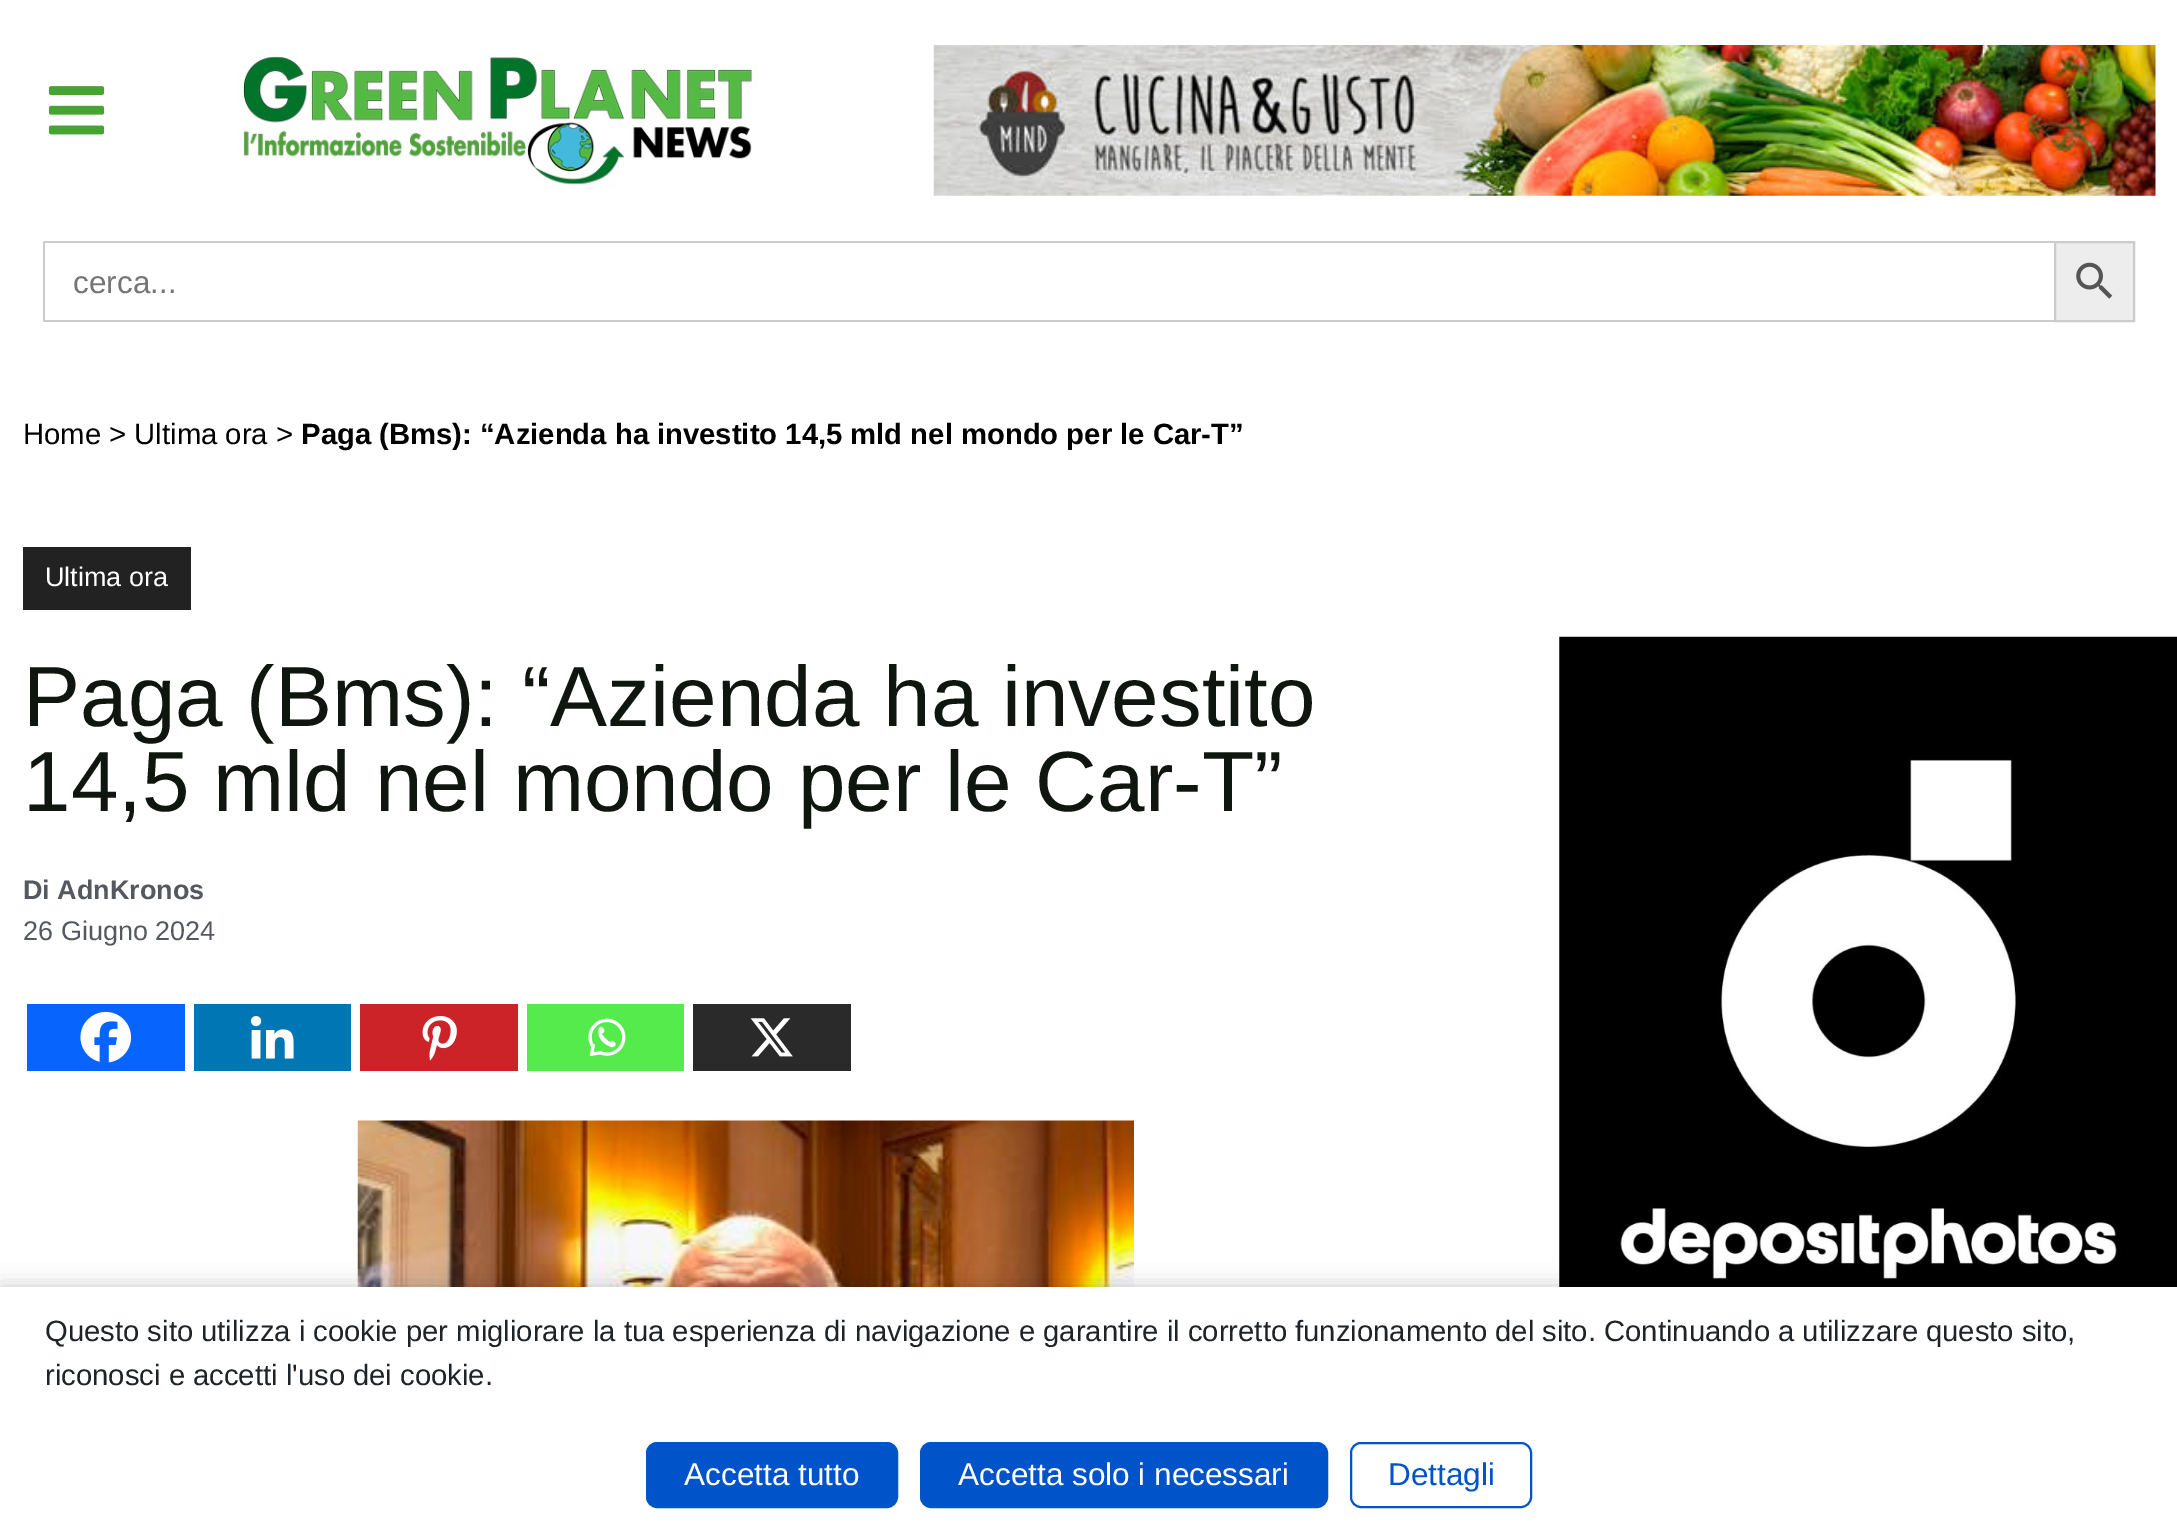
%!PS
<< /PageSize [2177 1528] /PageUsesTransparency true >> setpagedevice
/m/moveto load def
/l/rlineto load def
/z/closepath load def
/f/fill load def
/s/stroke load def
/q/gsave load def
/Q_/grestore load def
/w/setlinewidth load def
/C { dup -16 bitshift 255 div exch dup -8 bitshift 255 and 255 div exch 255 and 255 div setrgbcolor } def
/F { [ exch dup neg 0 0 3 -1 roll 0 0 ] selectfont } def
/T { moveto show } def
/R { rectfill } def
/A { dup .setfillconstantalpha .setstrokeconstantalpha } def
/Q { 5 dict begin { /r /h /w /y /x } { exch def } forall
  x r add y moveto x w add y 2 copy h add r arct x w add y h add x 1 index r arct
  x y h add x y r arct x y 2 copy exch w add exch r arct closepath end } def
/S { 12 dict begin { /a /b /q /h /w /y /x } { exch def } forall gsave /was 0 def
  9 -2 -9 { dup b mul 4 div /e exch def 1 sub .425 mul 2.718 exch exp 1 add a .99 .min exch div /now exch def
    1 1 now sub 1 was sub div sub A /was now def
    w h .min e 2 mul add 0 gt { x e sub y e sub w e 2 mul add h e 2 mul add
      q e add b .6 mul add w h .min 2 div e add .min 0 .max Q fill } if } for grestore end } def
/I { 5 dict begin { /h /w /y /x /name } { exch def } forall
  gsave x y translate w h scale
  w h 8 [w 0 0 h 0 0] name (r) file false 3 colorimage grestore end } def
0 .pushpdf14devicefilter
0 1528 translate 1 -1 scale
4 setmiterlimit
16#FFFFFF C
0 0 2177 1528 R
(1.rgb) 48 86 57 49 I
(2.rgb) 237 50 521 139 I
(3.rgb) 933 45 1223 151 I
16#CCCCCC C
43 241 2011 2 R
43 320 2011 2 R
43 241 2 81 R
/LiberationSans-Regular 31.5 F
16#757575 C
(cerca...) 73 293 T
16#EDEDED C
2055 242 m 79 0 l 0 79 l -79 0 l z q f Q_
16#CCCCCC C
2 w
s
(4.rgb) 2076 262 37 37 I
/LiberationSans-Regular 29.25 F
16#000000 C
(Home > Ultima ora >) 23 444 T
/LiberationSans-Bold 29.25 F
(Paga \(Bms\): “Azienda ha investito 14,5 mld nel mondo per le Car-T”) 301 444 T
16#222222 C
23 547 168 63 R
/LiberationSans-Regular 27 F
16#FFFFFF C
(Ultima ora) 45 586 T
/LiberationSans-Regular 85.5 F
16#0F160F C
(Paga \(Bms\): “Azienda ha investito) 23 726 T
(14,5 mld nel mondo per le Car-T”) 23 811 T
/LiberationSans-Bold 27 F
16#54595F C
(Di AdnKronos) 23 899 T
/LiberationSans-Regular 27 F
(26 Giugno 2024) 23 940 T
16#0765FE C
27 1004 158 67 R
(5.rgb) 80 1011 52 52 I
16#0077B5 C
194 1004 157 67 R
(6.rgb) 250 1016 44 43 I
16#CC2329 C
360 1004 158 67 R
(7.rgb) 422 1016 35 45 I
16#55EB4C C
527 1004 157 67 R
(8.rgb) 588 1018 38 39 I
16#2A2A2A C
693 1004 158 67 R
(9.rgb) 750 1018 43 39 I
(10.rgb) 357 1120 777 167 I
(11.rgb) 1559 636 618 651 I
16#000000 C
0 1287 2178 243 0 11 .2 S
16#FFFFFF C
0 1287 2177 241 R
/LiberationSans-Regular 29.25 F
16#1D2327 C
(Questo sito utilizza i cookie per migliorare la tua esperienza di navigazione e garantire il corretto funzionamento del sito. Continuando a utilizzare questo sito,) 45 1341 T
(riconosci e accetti l'uso dei cookie.) 45 1385 T
16#0053C8 C
647 1443 250 64 10 Q q f Q_
s
/LiberationSans-Regular 31.5 F
16#FFFFFF C
(Accetta tutto) 684 1485 T
16#0053C8 C
921 1443 406 64 10 Q q f Q_
s
16#FFFFFF C
(Accetta solo i necessari) 958 1485 T
16#0053C8 C
1351 1443 180 64 10 Q s
(Dettagli) 1388 1485 T
.poppdf14devicefilter showpage
